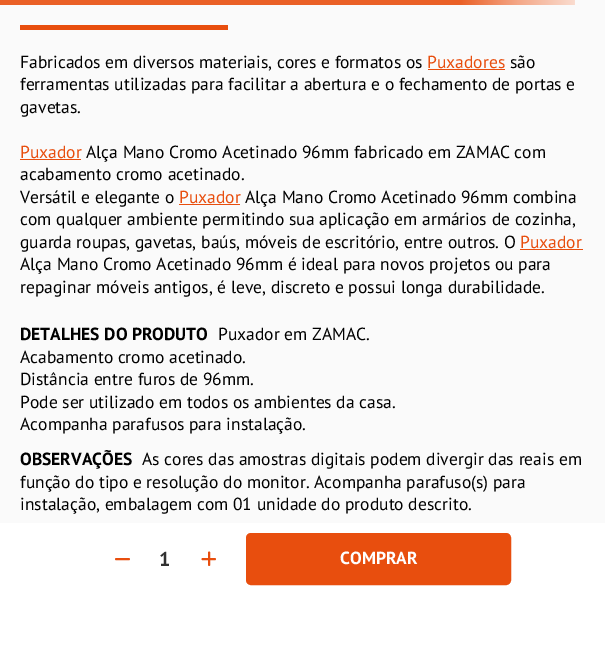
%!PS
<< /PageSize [605 645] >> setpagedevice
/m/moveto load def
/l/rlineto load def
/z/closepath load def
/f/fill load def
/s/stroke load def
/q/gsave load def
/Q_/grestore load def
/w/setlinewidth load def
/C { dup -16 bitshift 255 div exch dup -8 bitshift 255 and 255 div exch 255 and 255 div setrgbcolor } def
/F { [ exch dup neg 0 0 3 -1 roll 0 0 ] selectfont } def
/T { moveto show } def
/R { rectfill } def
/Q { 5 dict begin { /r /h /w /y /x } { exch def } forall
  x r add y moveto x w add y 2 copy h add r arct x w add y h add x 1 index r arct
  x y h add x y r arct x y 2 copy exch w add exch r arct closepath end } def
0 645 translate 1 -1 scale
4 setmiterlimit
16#FFFFFF C
0 0 605 645 R
16#FAFAFA C
0 0 605 523 R
q 0 0 m 575 0 l 0 5 l -575 0 l z clip newpath
<< /ShadingType 2 /ColorSpace /DeviceRGB /Coords [0 2.5 575 2.5] /Extend [true true] /Function << /FunctionType 3 /Domain [0 1] /Functions [<< /FunctionType 2 /Domain [0 1] /C0 [.918 .376 .149] /C1 [.918 .376 .149] /N 1 >> << /FunctionType 2 /Domain [0 1] /C0 [.918 .376 .149] /C1 [.957 .655 .529] /N 1 >> << /FunctionType 2 /Domain [0 1] /C0 [.957 .655 .529] /C1 [.98 .863 .812] /N 1 >>] /Bounds [.8 .9] /Encode [0 1 0 1 0 1] >> >> shfill Q_
16#E84E0E C
20 25 208 5 R
/PTSans-Regular 17.5 F
16#000000 C
(Fabricados em diversos materiais, cores e formatos os) 20 68 T
16#E84E0E C
(Puxadores) 427 68 T
428 69 77 1 R
16#000000 C
(são) 510 68 T
(ferramentas utilizadas para facilitar a abertura e o fechamento de portas e) 20 90 T
(gavetas.) 20 113 T
16#E84E0E C
(Puxador) 20 158 T
20 159 61 1 R
16#000000 C
(Alça Mano Cromo Acetinado 96mm fabricado em ZAMAC com) 86 158 T
(acabamento cromo acetinado.) 20 180 T
(Versátil e elegante o) 20 203 T
16#E84E0E C
(Puxador) 179 203 T
179 204 61 1 R
16#000000 C
(Alça Mano Cromo Acetinado 96mm combina) 245 203 T
(com qualquer ambiente permitindo sua aplicação em armários de cozinha,) 20 225 T
(guarda roupas, gavetas, baús, móveis de escritório, entre outros. O) 20 248 T
16#E84E0E C
(Puxador) 520 248 T
520 249 63 1 R
16#000000 C
(Alça Mano Cromo Acetinado 96mm é ideal para novos projetos ou para) 20 270 T
(repaginar móveis antigos, é leve, discreto e possui longa durabilidade.) 20 293 T
/PTSans-Bold 17.5 F
(DETALHES DO PRODUTO) 20 340 T
/PTSans-Regular 17.5 F
(Puxador em ZAMAC.) 218 340 T
(Acabamento cromo acetinado.) 20 363 T
(Distância entre furos de 96mm.) 20 385 T
(Pode ser utilizado em todos os ambientes da casa.) 20 408 T
(Acompanha parafusos para instalação.) 20 430 T
/PTSans-Bold 17.5 F
(OBSERVAÇÕES) 20 465 T
/PTSans-Regular 17.5 F
(As cores das amostras digitais podem divergir das reais em) 142 465 T
(função do tipo e resolução do monitor. Acompanha parafuso\(s\) para) 20 488 T
(instalação, embalagem com 01 unidade do produto descrito.) 20 510 T
16#E84E0E C
1.9 w
1 setlinecap
1 setlinejoin
116 559 m 13 0 l s
/PTSans-Bold 20 F
16#313131 C
(1) 159 566 T
16#E84E0E C
202.5 559 m 6.5 0 l 209 559 m 6 0 l 209 559 m 0 -6.5 l 209 559 m 0 6 l s
247.5 534.5 262 49 3.5 Q q f Q_
3 w
0 setlinecap
0 setlinejoin
s
/PTSans-Bold 17.5 F
16#FFFFFF C
(COMPRAR) 340 564 T
showpage
